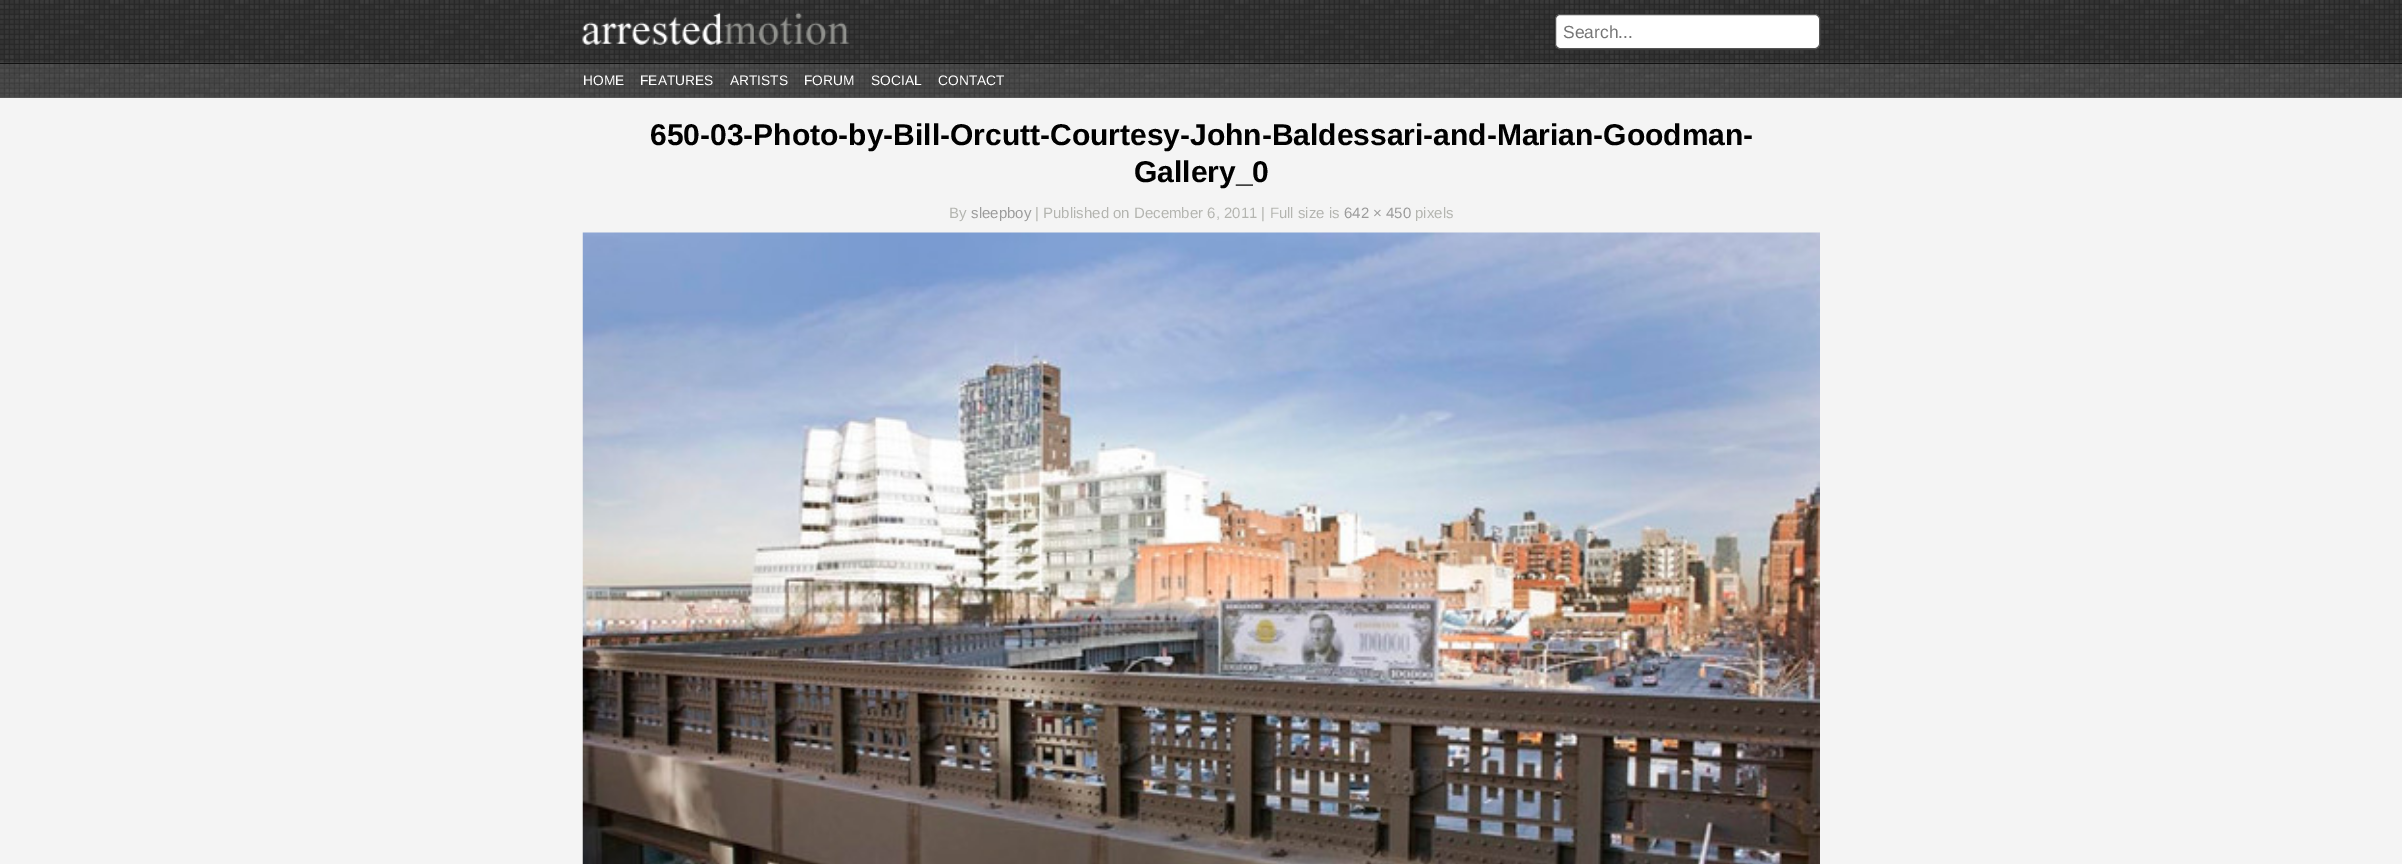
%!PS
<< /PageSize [2402 864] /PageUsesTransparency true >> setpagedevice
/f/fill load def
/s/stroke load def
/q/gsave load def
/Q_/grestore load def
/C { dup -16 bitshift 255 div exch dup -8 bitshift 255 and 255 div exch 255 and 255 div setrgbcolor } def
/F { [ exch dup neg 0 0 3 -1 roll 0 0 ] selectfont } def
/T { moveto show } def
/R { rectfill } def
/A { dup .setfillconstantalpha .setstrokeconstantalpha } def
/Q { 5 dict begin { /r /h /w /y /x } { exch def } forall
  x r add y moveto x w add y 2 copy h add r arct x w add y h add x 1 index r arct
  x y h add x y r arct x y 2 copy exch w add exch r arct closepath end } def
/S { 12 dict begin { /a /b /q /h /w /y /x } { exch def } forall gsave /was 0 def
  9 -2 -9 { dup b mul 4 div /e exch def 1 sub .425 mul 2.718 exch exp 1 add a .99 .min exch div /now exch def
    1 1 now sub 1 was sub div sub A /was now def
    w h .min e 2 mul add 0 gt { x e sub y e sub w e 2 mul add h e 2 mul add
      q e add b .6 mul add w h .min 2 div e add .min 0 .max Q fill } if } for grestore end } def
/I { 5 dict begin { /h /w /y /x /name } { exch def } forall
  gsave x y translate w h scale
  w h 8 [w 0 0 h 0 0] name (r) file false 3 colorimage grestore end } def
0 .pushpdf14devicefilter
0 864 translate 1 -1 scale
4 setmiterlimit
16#F4F4F4 C
0 0 2402 864 R
(1.rgb) 0 0 2402 63 I
(2.rgb) 582 12 268 33 I
16#333333 C
1556 15 265 35 5 .5 1 S
16#FFFFFF C
1555.5 14.5 264 34 4.5 Q q f Q_
16#555555 C
s
/LiberationSans-Regular 17.5 F
16#757575 C
(Search...) 1563 38 T
16#666666 C
0 97 2402 1 R
(3.rgb) 0 62 2402 36 I
16#111111 C
0 63 2402 1 R
/LiberationSans-Regular 13.75 F
16#FFFFFF C
(HOME) 583 85 T
(FEATURES) 640 85 T
(ARTISTS) 730 85 T
(FORUM) 804 85 T
(SOCIAL) 871 85 T
(CONTACT) 938 85 T
/LiberationSans-Bold 30 F
16#000000 C
(650-03-Photo-by-Bill-Orcutt-Courtesy-John-Baldessari-and-Marian-Goodman-) 650 145 T
(Gallery_0) 1134 182 T
/LiberationSans-Regular 15 F
16#B4B5B0 C
(By) 949 218 T
16#9B9B9B C
(sleepboy) 971 218 T
16#B4B5B0 C
(| Published on December 6, 2011 | Full size is) 1035 218 T
16#9B9B9B C
(642 × 450) 1344 218 T
16#B4B5B0 C
(pixels) 1415 218 T
(4.rgb) 582 232 1238 632 I
.poppdf14devicefilter showpage
